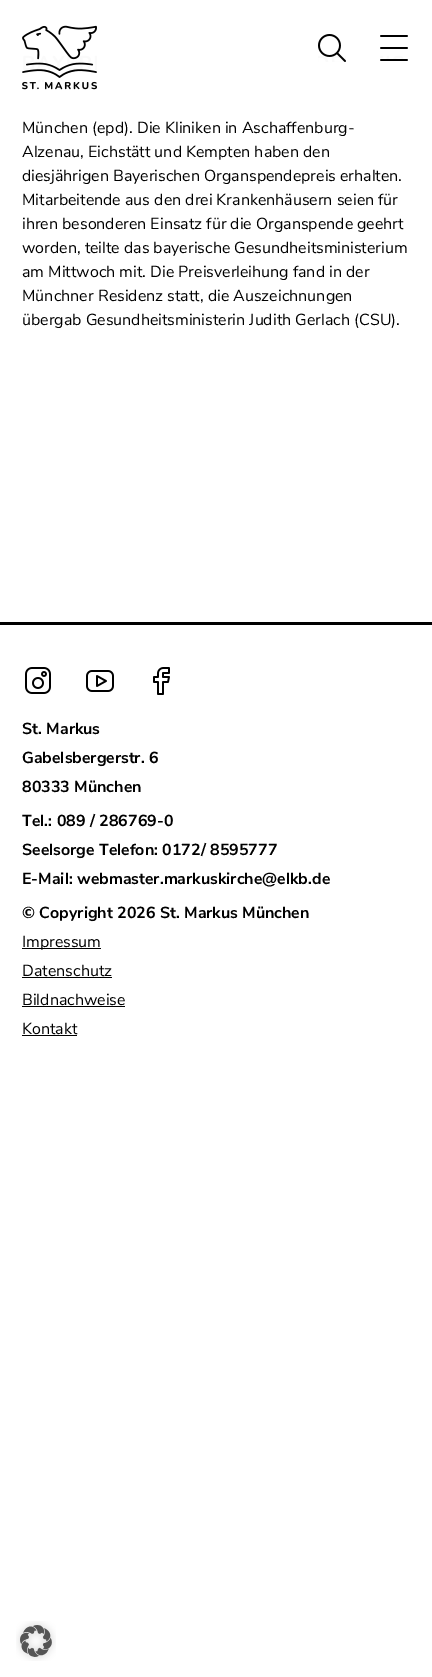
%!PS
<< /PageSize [432 1677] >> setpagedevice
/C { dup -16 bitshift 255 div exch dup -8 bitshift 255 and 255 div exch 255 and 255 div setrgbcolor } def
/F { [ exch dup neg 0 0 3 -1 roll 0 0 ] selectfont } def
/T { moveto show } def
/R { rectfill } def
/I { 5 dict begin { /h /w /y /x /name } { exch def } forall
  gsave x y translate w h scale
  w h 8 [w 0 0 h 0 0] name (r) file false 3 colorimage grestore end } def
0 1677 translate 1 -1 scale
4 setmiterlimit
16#FFFFFF C
0 0 432 1677 R
(1.rgb) 22 25 75 65 I
(2.rgb) 318 34 28 28 I
(3.rgb) 380 35 28 26 I
/NunitoSans-Regular 16 F
16#000000 C
(München \(epd\). Die Kliniken in Aschaffenburg-) 22 133 T
(Alzenau, Eichstätt und Kempten haben den) 22 157 T
(diesjährigen Bayerischen Organspendepreis erhalten.) 22 181 T
(Mitarbeitende aus den drei Krankenhäusern seien für) 22 205 T
(ihren besonderen Einsatz für die Organspende geehrt) 22 229 T
(worden, teilte das bayerische Gesundheitsministerium) 22 253 T
(am Mittwoch mit. Die Preisverleihung fand in der) 22 277 T
(Münchner Residenz statt, die Auszeichnungen) 22 301 T
(übergab Gesundheitsministerin Judith Gerlach \(CSU\).) 22 325 T
0 622 432 3 R
(4.rgb) 25 667 26 27 I
(5.rgb) 86 670 28 22 I
(6.rgb) 153 667 17 28 I
/NunitoSans-Bold 16 F
(St. Markus) 22 734 T
(Gabelsbergerstr. 6) 22 763 T
(80333 München) 22 792 T
(Tel.: 089 / 286769-0) 22 826 T
(Seelsorge Telefon: 0172/ 8595777) 22 855 T
(E-Mail: webmaster.markuskirche@elkb.de) 22 884 T
(© Copyright 2026 St. Markus München) 22 918 T
22 948 79 1 R
/NunitoSans-Regular 16 F
(Impressum) 22 947 T
(Datenschutz) 22 976 T
22 977 90 1 R
(Bildnachweise) 22 1005 T
22 1006 103 1 R
(Kontakt) 22 1034 T
22 1035 55 1 R
(7.rgb) 16 1621 40 40 I
showpage
